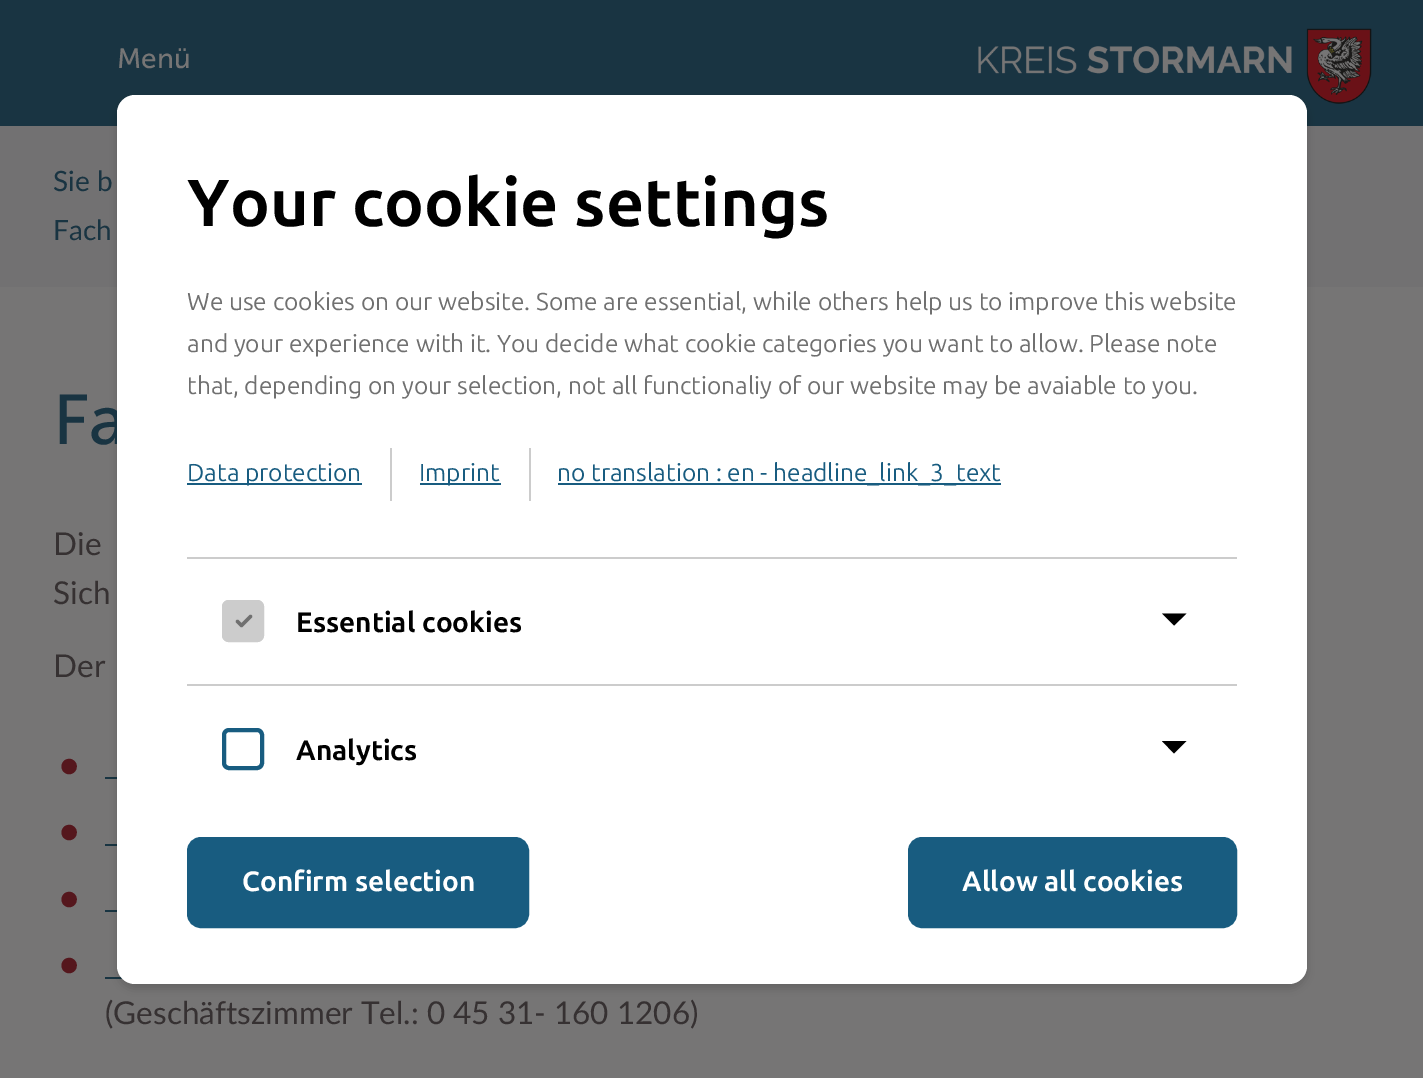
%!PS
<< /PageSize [1423 1078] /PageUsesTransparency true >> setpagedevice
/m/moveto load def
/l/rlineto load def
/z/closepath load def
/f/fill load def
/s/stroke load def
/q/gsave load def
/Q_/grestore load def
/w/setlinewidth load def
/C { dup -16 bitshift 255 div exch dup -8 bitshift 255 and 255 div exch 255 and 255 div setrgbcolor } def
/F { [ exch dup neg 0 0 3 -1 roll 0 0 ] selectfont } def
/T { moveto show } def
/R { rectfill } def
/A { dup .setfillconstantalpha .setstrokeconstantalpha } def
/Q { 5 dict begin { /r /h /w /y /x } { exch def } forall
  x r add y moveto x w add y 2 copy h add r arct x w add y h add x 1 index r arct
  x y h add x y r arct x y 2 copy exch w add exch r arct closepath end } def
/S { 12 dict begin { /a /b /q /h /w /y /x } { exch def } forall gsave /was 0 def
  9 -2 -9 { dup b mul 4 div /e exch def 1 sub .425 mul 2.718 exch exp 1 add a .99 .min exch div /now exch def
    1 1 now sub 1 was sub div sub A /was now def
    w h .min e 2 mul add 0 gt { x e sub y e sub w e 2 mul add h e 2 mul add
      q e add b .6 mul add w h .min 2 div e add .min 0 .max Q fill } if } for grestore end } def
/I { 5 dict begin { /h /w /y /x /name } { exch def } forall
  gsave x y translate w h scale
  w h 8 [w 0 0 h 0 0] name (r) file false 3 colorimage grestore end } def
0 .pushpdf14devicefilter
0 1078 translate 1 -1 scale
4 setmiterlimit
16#767575 C
0 0 1423 1078 R
16#193442 C
0 0 1423 126 R
/MuseoSans-Regular 28 F
16#767575 C
(Menü) 117 68 T
(1.rgb) 978 28 394 76 I
16#727172 C
0 126 1423 161 R
/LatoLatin-Regular 28 F
16#193442 C
(Sie b) 53 191 T
(Fach) 53 240 T
16#183442 C
105 777 12 2 R
105 844 12 2 R
105 910 12 2 R
105 977 18 2 R
16#000000 C
117 100 1190 889 18 5 .16 S
/MuseoSans-Regular 70 F
16#193442 C
(Fa) 53 444 T
16#FFFFFF C
117 95 1190 889 18 Q f
/Ubuntu-Bold 66.5 F
16#000000 C
(Your cookie settings) 187 226 T
/Ubuntu-Regular 24.5 F
16#707070 C
(We use cookies on our website. Some are essential, while others help us to improve this website) 187 310 T
(and your experience with it. You decide what cookie categories you want to allow. Please note) 187 352 T
(that, depending on your selection, not all functionaliy of our website may be avaiable to you.) 187 394 T
16#CCCCCC C
390 448 2 53 R
16#185C80 C
187 483 175 2 R
(Data protection) 187 481 T
16#CCCCCC C
529 448 2 53 R
16#185C80 C
420 483 81 2 R
(Imprint) 419 481 T
558 483 443 2 R
(no translation : en - headline_link_3_text) 557 481 T
16#CCCCCC C
187 557 1050 2 R
187 684 1050 2 R
222 600 42 42 7 Q f
16#707070 C
3.5 w
1 setlinecap
1 setlinejoin
250.5 616.5 m -9 9 l -4 -4 l s
16#CCCCCC C
4 w
0 setlinecap
0 setlinejoin
224 602 38 38 5 Q s
/Ubuntu-Bold 28 F
16#000000 C
(Essential cookies) 296 632 T
1162 613.5 m 24.5 0 l -12.5 12 l z f
16#185C80 C
224 730 38 38 5 Q s
16#000000 C
(Analytics) 296 760 T
1162 741 m 24.5 0 l -12.5 12.5 l z f
16#185C80 C
188 838 340 89 13 Q q f Q_
2 w
s
16#FFFFFF C
(Confirm selection) 242 891 T
16#185C80 C
909 838 327 89 13 Q q f Q_
s
16#FFFFFF C
(Allow all cookies) 962 891 T
/LatoLatin-Regular 31.5 F
16#363132 C
(Die) 53 555 T
(Sich) 53 604 T
(Der) 53 677 T
/LatoLatin-Regular 42 F
16#55171D C
(•) 57 779 T
(•) 57 845 T
(•) 57 912 T
(•) 57 978 T
/LatoLatin-Regular 31.5 F
16#363132 C
(\(Geschäftszimmer Tel.: 0 45 31- 160 1206\)) 105 1024 T
.poppdf14devicefilter showpage
